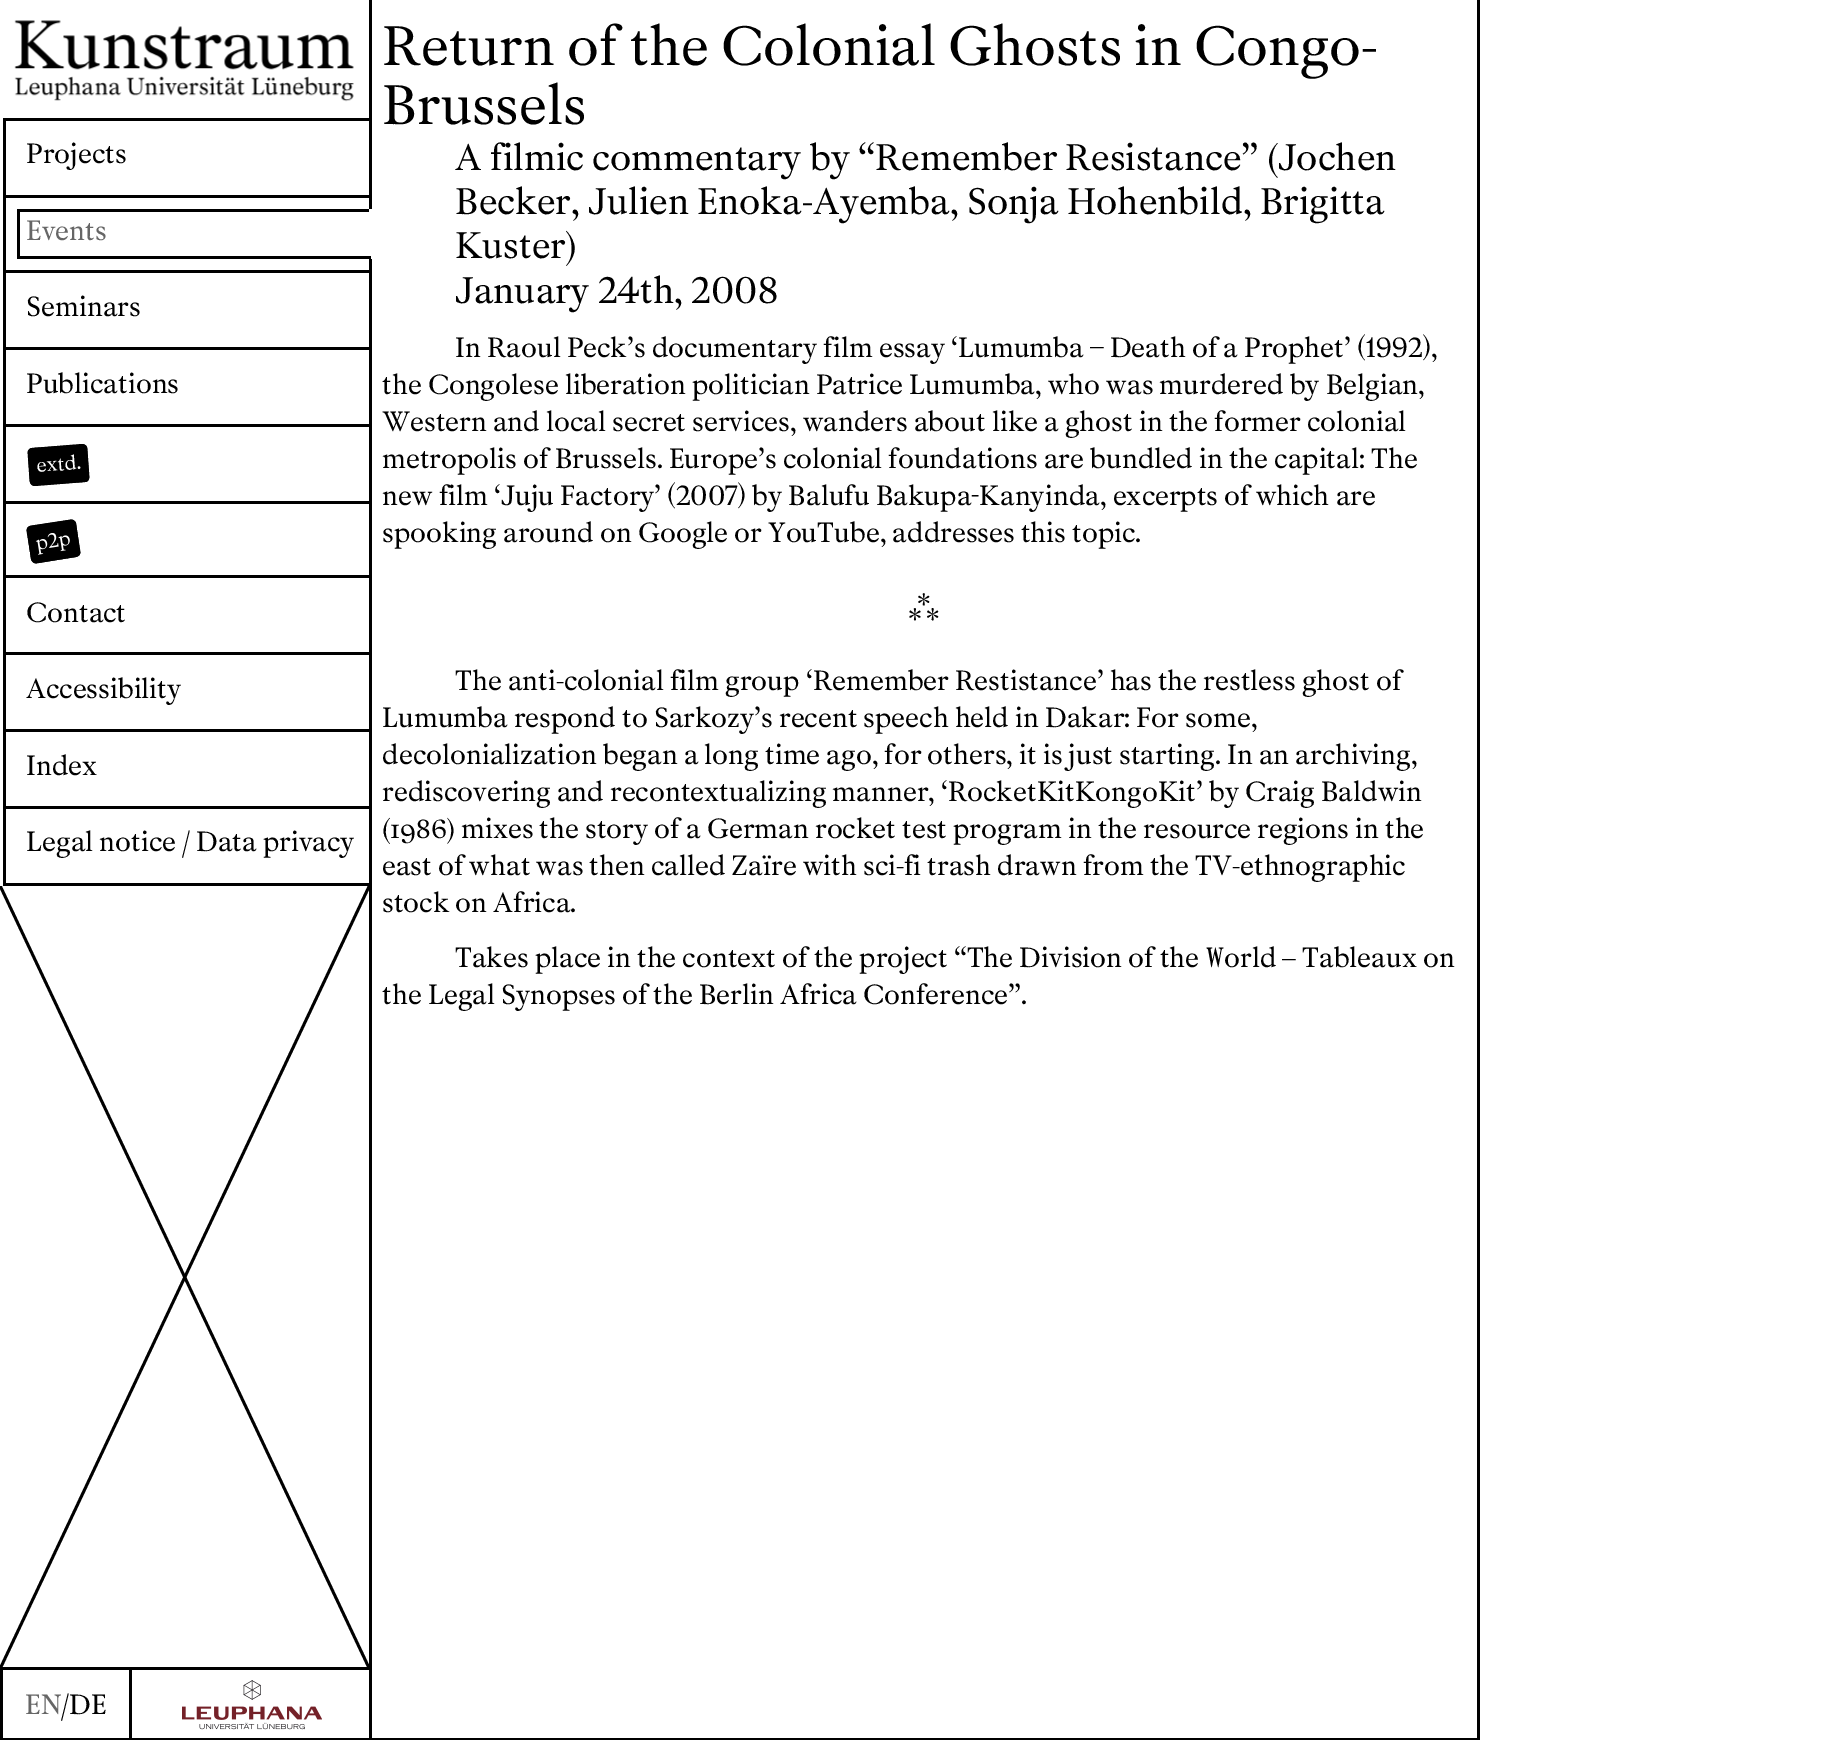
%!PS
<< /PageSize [1846 1740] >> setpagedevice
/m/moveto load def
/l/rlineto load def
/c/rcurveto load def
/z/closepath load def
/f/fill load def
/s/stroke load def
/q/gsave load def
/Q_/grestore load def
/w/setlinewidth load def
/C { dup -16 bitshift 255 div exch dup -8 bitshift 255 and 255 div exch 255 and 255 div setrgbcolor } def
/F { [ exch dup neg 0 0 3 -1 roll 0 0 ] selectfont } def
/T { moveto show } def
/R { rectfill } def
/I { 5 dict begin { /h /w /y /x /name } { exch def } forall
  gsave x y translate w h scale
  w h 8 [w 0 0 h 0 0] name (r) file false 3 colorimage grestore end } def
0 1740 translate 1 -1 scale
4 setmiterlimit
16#FFFFFF C
0 0 1846 1740 R
(1.rgb) 14 20 340 82 I
16#000000 C
3 118 366 3 R
1477 0 3 1740 R
369 1738 1111 2 R
369 0 3 1740 R
3 195 368 3 R
3 121 3 77 R
/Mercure-Regular 27.7 F
(Projects) 26 163 T
3 270 368 3 R
3 198 3 74 R
17 209 354 3 R
16#FFFFFF C
369 209 3 50 R
16#000000 C
17 256 354 3 R
17 209 3 50 R
16#666666 C
(Events) 26 240 T
16#000000 C
3 347 368 3 R
3 272 3 77 R
(Seminars) 26 316 T
3 424 368 3 R
3 349 3 77 R
(Publications) 26 393 T
3 501 368 3 R
3 426 3 77 R
32 448 m 50 -4 l 3 0 5 2 5 5 c 2 28 l 0 3 -1 5 -4 5 c -50 4 l -3 0 -5 -2 -5 -5 c -2 -28 l 0 -3 2 -5 4 -5 c z f
2.7 w
32 449.5 m 50.5 -3.5 l 2 -.5 3.5 1 3.5 3 c 2 28 l 0 2 -1.5 3.5 -3 3.5 c -50.5 3.5 l -1.5 .5 -3 -1 -3.5 -3 c -2 -28.5 l 0 -1.5 1.5 -3 3 -3 c z s
/Mercure-Regular 20 F
16#FFFFFF C
q 37 472 translate -4 rotate 0 0 m (extd.) show Q_
16#000000 C
3 575 368 3 R
3 503 3 75 R
31 526 m 39 -6 l 3 -1 5 1 6 3 c 4 29 l 1 2 -1 4 -4 5 c -39 6 l -3 1 -5 -1 -6 -4 c -4 -28 l -1 -2 1 -5 4 -5 c z f
31 527 m 39.5 -6 l 2 -.5 3.5 1 4 2.5 c 4.5 28.5 l 0 1.5 -1 3 -3 3.5 c -39.5 6.5 l -2 0 -3.5 -1 -4 -3 c -4.5 -28 l 0 -2 1 -3.5 3 -4 c z s
(2.rgb) 35 533 35 22 I
3 652 368 3 R
3 578 3 77 R
/Mercure-Regular 27.7 F
(Contact) 26 622 T
3 729 368 3 R
3 655 3 77 R
(Accessibility) 26 698 T
3 806 368 3 R
3 732 3 77 R
(Index) 26 775 T
3 883 368 3 R
3 809 3 77 R
(Legal notice / Data privacy) 26 851 T
q
0 886 369 781 rectclip
2.8 w
369.5 1669 m -369.5 -783.5 l s
369.5 885.5 m -369.5 783.5 l s
Q_
0 1667 369 3 R
0 1738 369 2 R
0 1669 3 71 R
16#666666 C
(EN) 25 1714 T
16#000000 C
(/DE) 61 1714 T
129 1669 3 71 R
(3.rgb) 182 1680 140 50 I
/Mercure-Regular 55.4 F
(Return of the Colonial Ghosts in Congo-) 382 65 T
(Brussels) 382 124 T
/Mercure-Regular 36.95 F
(A filmic commentary by “Remember Resistance” \(Jochen) 455 170 T
(Becker, Julien Enoka-Ayemba, Sonja Hohenbild, Brigitta) 455 214 T
(Kuster\)) 455 258 T
/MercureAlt-Regular 36.95 F
(January 24th, 2008) 455 303 T
/MercureAlt-Regular 27.7 F
(In Raoul Peck’s documentary film essay ‘Lumumba – Death of a Prophet’ \(1992\),) 455 357 T
/Mercure-Regular 27.7 F
(the Congolese liberation politician Patrice Lumumba, who was murdered by Belgian,) 382 394 T
(Western and local secret services, wanders about like a ghost in the former colonial) 382 431 T
(metropolis of Brussels. Europe’s colonial foundations are bundled in the capital: The) 382 468 T
/MercureAlt-Regular 27.7 F
(new film ‘Juju Factory’ \(2007\) by Balufu Bakupa-Kanyinda, excerpts of which are) 382 505 T
/Mercure-Regular 27.7 F
(spooking around on Google or YouTube, addresses this topic.) 382 542 T
(⁂) 908 616 T
(The anti-colonial film group ‘Remember Restistance’ has the restless ghost of) 455 690 T
(Lumumba respond to Sarkozy’s recent speech held in Dakar: For some,) 382 727 T
(decolonialization began a long time ago, for others, it is just starting. In an archiving,) 382 764 T
(rediscovering and recontextualizing manner, ‘RocketKitKongoKit’ by Craig Baldwin) 382 801 T
(\(1986\) mixes the story of a German rocket test program in the resource regions in the) 382 838 T
(east of what was then called Zaïre with sci-fi trash drawn from the TV-ethnographic) 382 875 T
(stock on Africa.) 382 912 T
(Takes place in the context of the project “The Division of the) 455 967 T
/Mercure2-Regular 27.7 F
(W) 1206 967 T
/Mercure-Regular 27.7 F
(orld – Tableaux on) 1224 967 T
(the Legal Synopses of the Berlin Africa Conference”.) 382 1004 T
showpage
